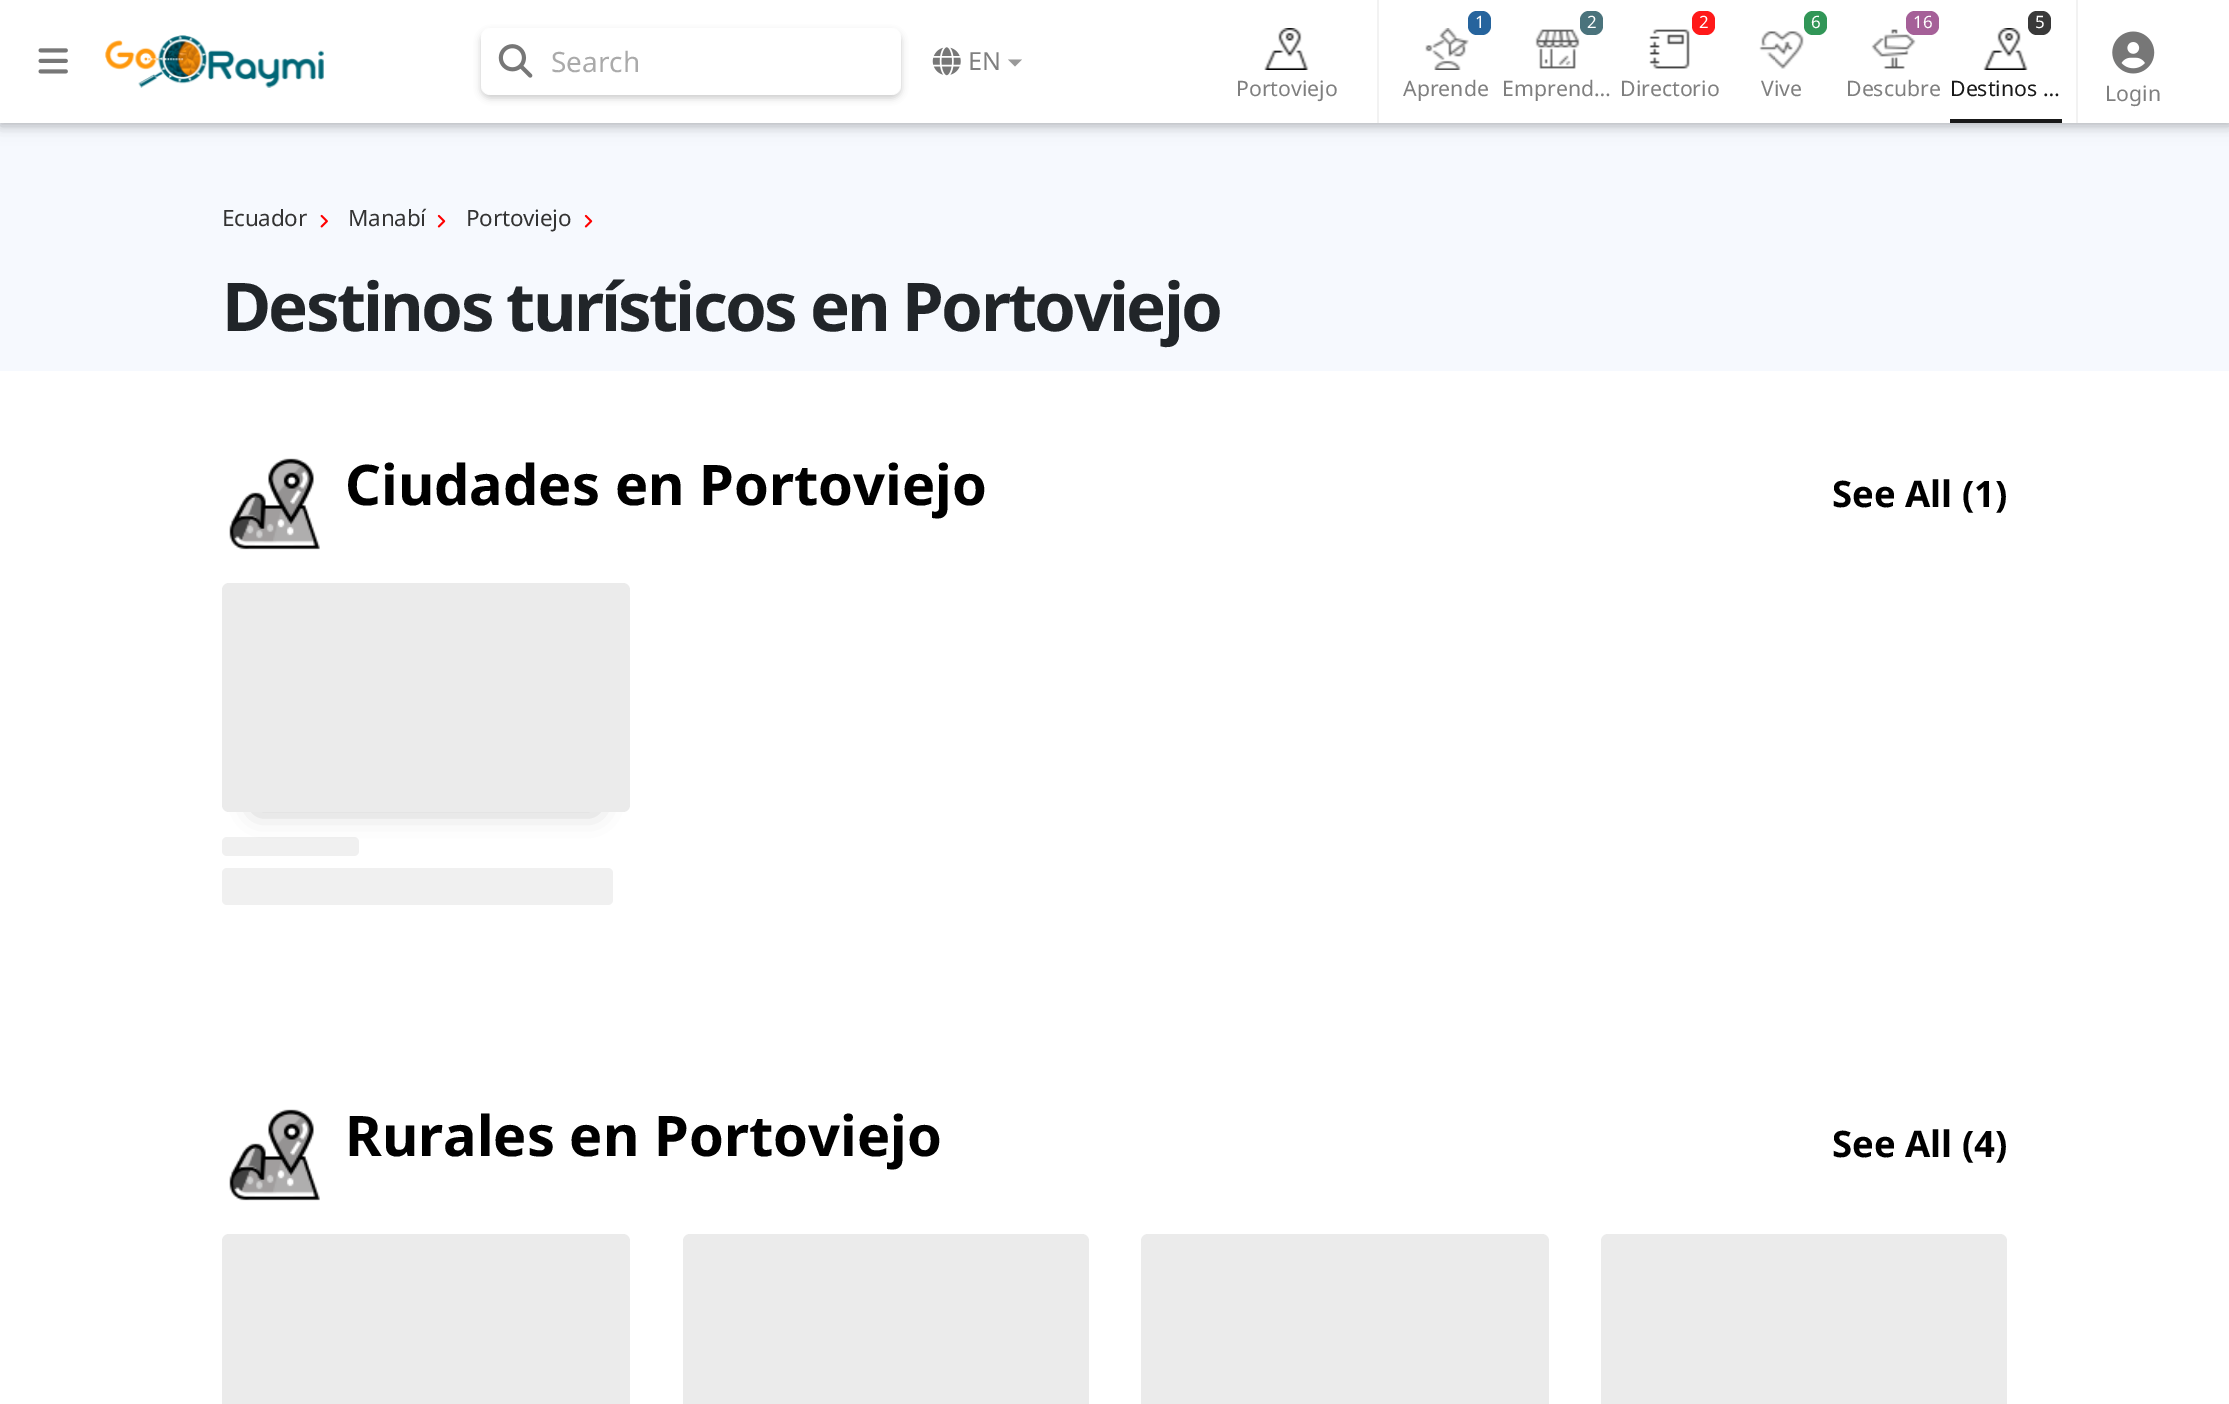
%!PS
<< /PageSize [2229 1404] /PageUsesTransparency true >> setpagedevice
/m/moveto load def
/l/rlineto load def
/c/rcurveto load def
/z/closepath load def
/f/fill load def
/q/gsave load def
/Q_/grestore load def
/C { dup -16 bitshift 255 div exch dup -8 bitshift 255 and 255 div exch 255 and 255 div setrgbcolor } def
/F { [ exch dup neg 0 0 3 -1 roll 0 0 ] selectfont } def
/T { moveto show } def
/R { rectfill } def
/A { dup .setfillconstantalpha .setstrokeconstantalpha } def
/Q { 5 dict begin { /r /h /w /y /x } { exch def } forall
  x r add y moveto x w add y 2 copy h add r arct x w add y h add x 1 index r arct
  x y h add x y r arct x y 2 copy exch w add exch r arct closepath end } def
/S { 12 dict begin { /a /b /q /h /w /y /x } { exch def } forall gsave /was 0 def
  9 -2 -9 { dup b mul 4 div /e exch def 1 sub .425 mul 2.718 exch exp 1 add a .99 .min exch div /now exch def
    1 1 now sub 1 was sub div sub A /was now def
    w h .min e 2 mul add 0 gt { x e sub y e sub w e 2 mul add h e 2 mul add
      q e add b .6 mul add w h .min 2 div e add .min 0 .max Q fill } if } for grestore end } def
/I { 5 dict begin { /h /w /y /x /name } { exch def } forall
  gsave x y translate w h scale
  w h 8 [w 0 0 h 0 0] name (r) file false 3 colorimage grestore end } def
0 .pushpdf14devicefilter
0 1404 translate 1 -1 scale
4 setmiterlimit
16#F6F9FE C
0 0 2229 1404 R
q
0 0 m 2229 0 l 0 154 l -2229 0 l z 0 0 m 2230 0 l 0 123 l -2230 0 l z eoclip newpath
16#000000 C
0 4 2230 122 0 9 .12 S
Q_
q
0 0 m 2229 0 l 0 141 l -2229 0 l z 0 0 m 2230 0 l 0 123 l -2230 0 l z eoclip newpath
16#000000 C
0 4 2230 122 0 4.5 .16 S
Q_
0.99 A
16#FFFFFF C
0 0 2229 123 R
1 A
(1.rgb) 38 48 30 26 I
(2.rgb) 105 35 219 53 I
q
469 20 m 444 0 l 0 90 l -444 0 l z 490 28 m 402 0 l 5 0 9 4 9 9 c 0 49 l 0 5 -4 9 -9 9 c -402 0 l -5 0 -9 -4 -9 -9 c 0 -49 l 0 -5 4 -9 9 -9 c z eoclip newpath
16#000000 C
481 32 420 66 9 3.5 .2 S
Q_
0.9 A
481 28 420 67 9 Q f
1 A
(3.rgb) 498 44 35 34 I
/NotoSans-Regular 28 F
16#AAAAAA C
(Search) 551 72 T
(4.rgb) 932 47 29 29 I
/NotoSans-Regular 25 F
16#7F7F7F C
(EN) 968 70 T
16#999999 C
1008 59.5 m 14 0 l -7 7 l z f
16#F2F2F2 C
1377 0 2 123 R
(5.rgb) 1264 28 45 42 I
/NotoSans-Regular 21.25 F
16#7F7F7F C
(Portoviejo) 1236 96 T
(6.rgb) 1425 28 44 42 I
16#26649D C
1468 11 23 24 9 Q f
/NotoSans-Regular 17 F
16#FFFFFF C
(1) 1475 28 T
/NotoSans-Regular 21.25 F
16#7F7F7F C
(Aprende) 1403 96 T
16#4A737C C
1580 11 23 24 9 Q f
/NotoSans-Regular 17 F
16#FFFFFF C
(2) 1587 28 T
(7.rgb) 1535 29 45 40 I
/NotoSans-Regular 21.25 F
16#7F7F7F C
(Emprend…) 1502 96 T
16#FF1919 C
1692 11 23 24 9 Q f
/NotoSans-Regular 17 F
16#FFFFFF C
(2) 1699 28 T
(8.rgb) 1649 29 41 40 I
/NotoSans-Regular 21.25 F
16#7F7F7F C
(Directorio) 1620 96 T
16#319657 C
1804 11 23 24 9 Q f
/NotoSans-Regular 17 F
16#FFFFFF C
(6) 1811 28 T
(9.rgb) 1759 31 45 38 I
/NotoSans-Regular 21.25 F
16#7F7F7F C
(Vive) 1761 96 T
(10.rgb) 1871 29 45 40 I
16#A56098 C
1906 11 33 24 9 Q f
/NotoSans-Regular 17 F
16#FFFFFF C
(16) 1913 28 T
/NotoSans-Regular 21.25 F
16#7F7F7F C
(Descubre) 1846 96 T
16#191919 C
1950 119 112 4 R
16#393939 C
2028 11 23 24 9 Q f
/NotoSans-Regular 17 F
16#FFFFFF C
(5) 2035 28 T
(11.rgb) 1983 28 45 42 I
/NotoSans-Regular 21.25 F
16#191919 C
(Destinos …) 1950 96 T
16#F2F2F2 C
2076 0 2 123 R
(12.rgb) 2112 31 43 43 I
16#7F7F7F C
(Login) 2105 101 T
/NotoSans-Regular 22.5 F
16#333333 C
222 226 m -.25 0 (Ecuador) ashow
(13.rgb) 320 214 8 14 I
348 226 m -.25 0 (Manabí) ashow
(14.rgb) 437 214 9 14 I
466 226 m -.25 0 (Portoviejo) ashow
(14.rgb) 584 214 9 14 I
/NotoSans-Bold 67.25 F
16#212529 C
222 331 m -2.8 0 (Destinos turísticos en Portoviejo) ashow
16#FFFFFF C
0 371 2229 1033 R
(15.rgb) 229 458 91 92 I
/NotoSans-Bold 56 F
16#000000 C
(Ciudades en Portoviejo) 345 505 T
/NotoSans-Bold 36.5 F
(See All \(1\)) 1832 507 T
16#F0F0F0 C
222 837 137 19 5 Q f
16#000000 C
257 649 338 160 0 13 .3 S
16#EBEBEB C
222 583 408 229 7 Q f
16#F0F0F0 C
222 868 391 37 5 Q f
(15.rgb) 229 1109 91 92 I
/NotoSans-Bold 56 F
16#000000 C
(Rurales en Portoviejo) 345 1156 T
/NotoSans-Bold 36.5 F
(See All \(4\)) 1832 1157 T
16#EBEBEB C
222 1234 408 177 7 Q f
683 1234 406 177 7 Q f
1141 1234 408 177 7 Q f
1601 1234 406 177 7 Q f
.poppdf14devicefilter showpage
